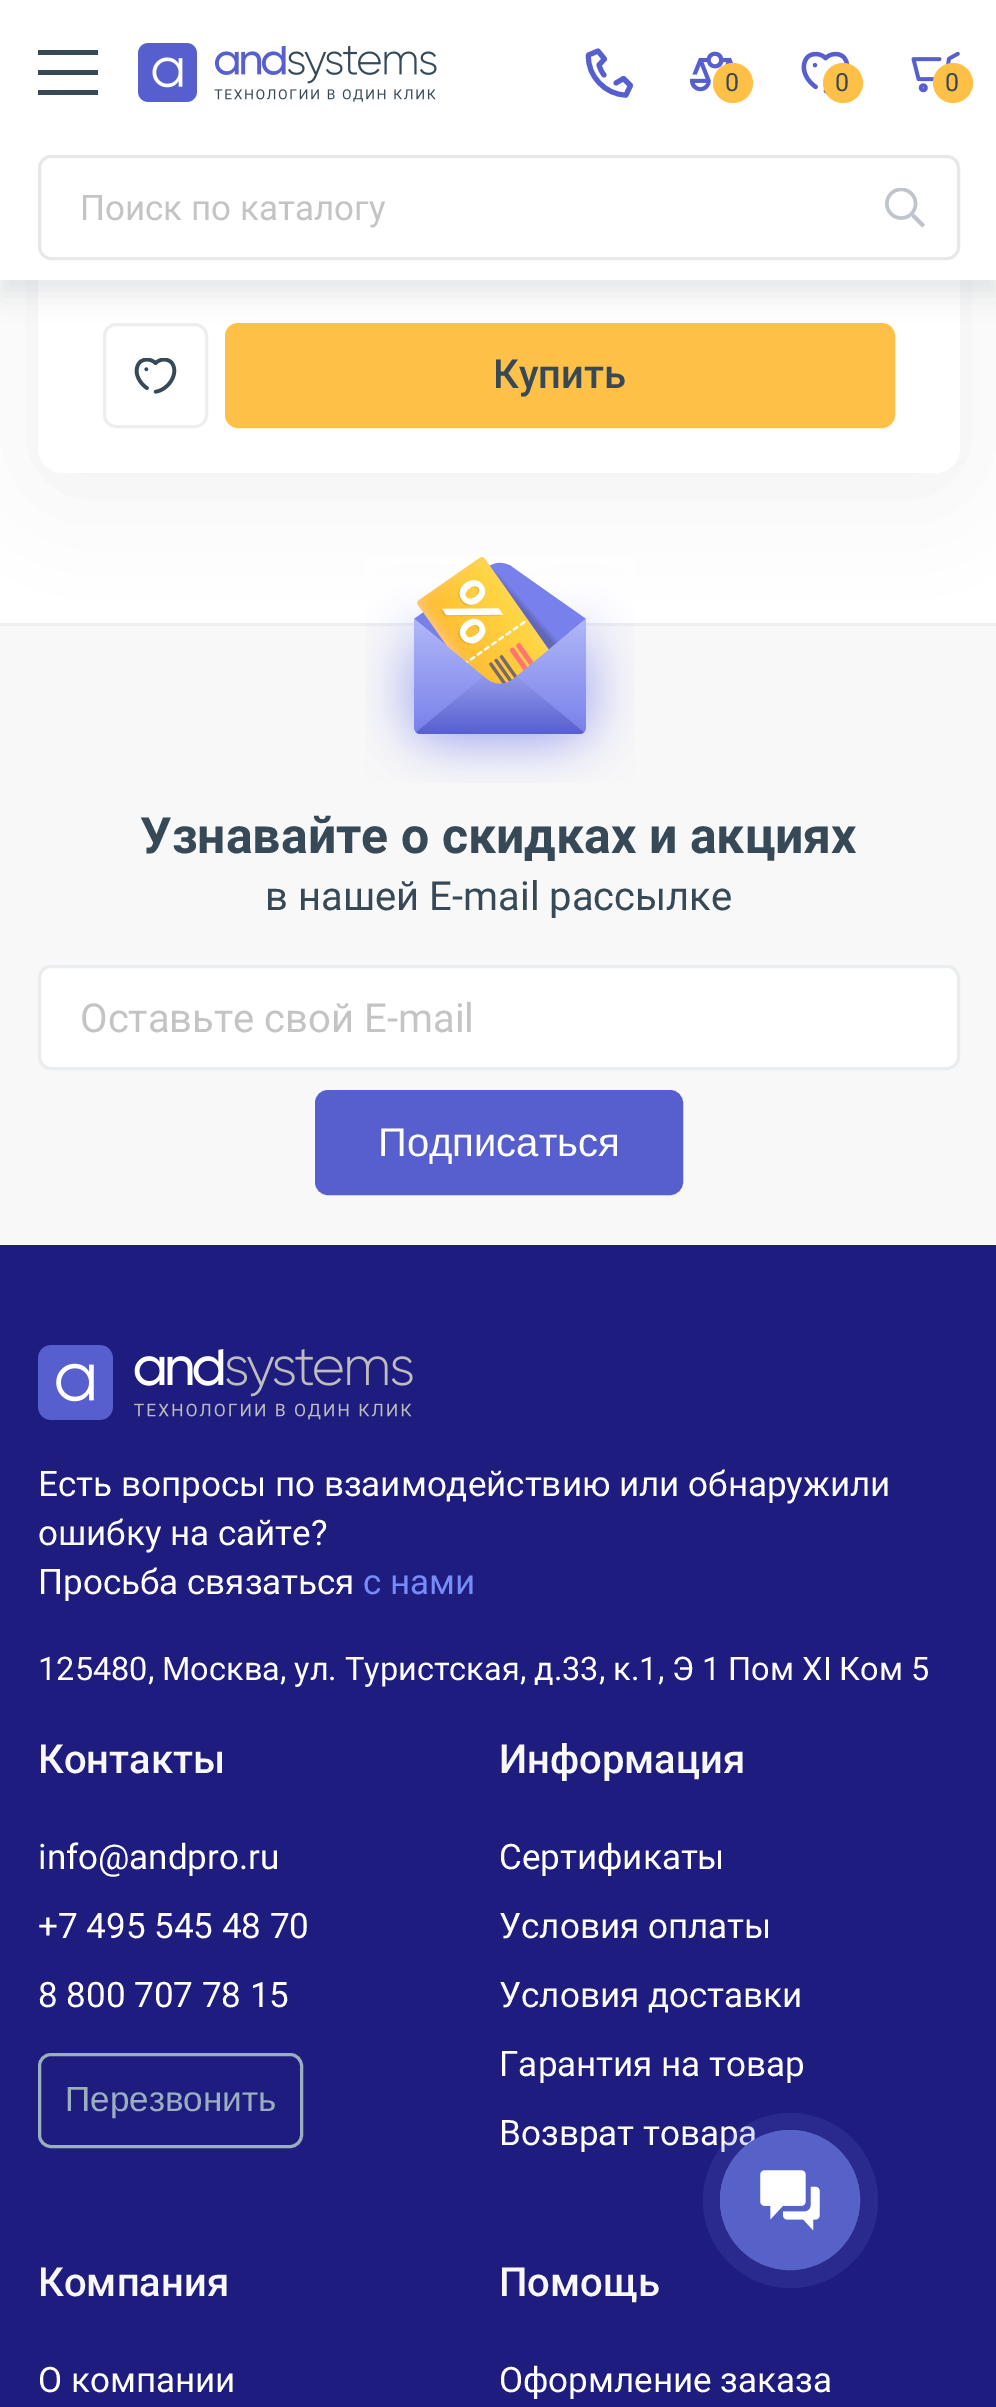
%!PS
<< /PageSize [996 2407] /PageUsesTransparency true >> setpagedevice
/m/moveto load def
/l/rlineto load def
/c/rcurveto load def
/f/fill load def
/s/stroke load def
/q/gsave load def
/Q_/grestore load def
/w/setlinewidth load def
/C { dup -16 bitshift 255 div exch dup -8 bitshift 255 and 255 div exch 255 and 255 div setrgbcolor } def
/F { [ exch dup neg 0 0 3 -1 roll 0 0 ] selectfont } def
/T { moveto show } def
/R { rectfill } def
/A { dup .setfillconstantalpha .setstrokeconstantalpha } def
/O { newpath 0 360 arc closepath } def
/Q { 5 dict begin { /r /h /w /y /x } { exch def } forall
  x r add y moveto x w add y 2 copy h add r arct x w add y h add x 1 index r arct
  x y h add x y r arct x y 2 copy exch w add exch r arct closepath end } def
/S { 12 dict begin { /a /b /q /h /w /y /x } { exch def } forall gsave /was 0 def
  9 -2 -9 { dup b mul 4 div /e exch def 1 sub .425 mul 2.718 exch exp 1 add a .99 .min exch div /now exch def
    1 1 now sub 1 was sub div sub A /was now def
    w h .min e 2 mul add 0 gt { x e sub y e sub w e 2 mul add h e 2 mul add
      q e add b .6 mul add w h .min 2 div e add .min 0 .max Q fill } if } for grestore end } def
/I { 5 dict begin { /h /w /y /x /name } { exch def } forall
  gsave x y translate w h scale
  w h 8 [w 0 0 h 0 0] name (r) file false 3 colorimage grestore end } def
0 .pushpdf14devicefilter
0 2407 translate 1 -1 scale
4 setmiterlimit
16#FFFFFF C
0 0 996 2407 R
16#F8F8F8 C
0 626 996 619 R
16#EEEEEE C
0 623 996 3 R
16#38455E C
38 -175 922 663 25 50 .07 S
16#FFFFFF C
38 -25 922 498 25 Q f
(6.rgb) 134 358 43 36 I
16#EEEEEE C
3 w
104.5 324.5 102 102 11.5 Q s
16#FFC048 C
226.5 324.5 667 102 11.5 Q q f Q_
s
16#38455E C
0 15 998 280 0 12.5 .12 S
16#FFFFFF C
0 0 996 280 R
16#374957 C
38 50 60 5 R
38 70 60 5 R
38 90 60 5 R
(1.rgb) 138 43 299 59 I
16#575FCF C
5 w
1 setlinecap
1 setlinejoin
616 83 m 7.5 -4.5 l 7 7 l -4.5 9.5 l -20.5 0 -39 -19.5 -37.5 -40 c 9.5 -4 l 6.5 8 l -5.5 6 l 0 0 2 6.5 5 10 c s
(2.rgb) 690 51 44 41 I
16#FFC048 C
733 83 20 O f
/Roboto-Regular 25 F
16#374957 C
(0) 725 91 T
(3.rgb) 801 51 49 43 I
16#FFC048 C
843 83 20 O f
16#374957 C
(0) 835 91 T
(4.rgb) 911 51 49 42 I
16#FFC048 C
953 83 20 O f
16#374957 C
(0) 945 91 T
16#E8E8E8 C
3 w
0 setlinecap
0 setlinejoin
39.5 156.5 919 102 11.5 Q s
/Roboto-Regular 35 F
16#C4C4C4 C
(Поиск по каталогу) 80 220 T
(5.rgb) 885 188 40 40 I
/Roboto-Medium 40 F
16#374957 C
(Купить) 493 388 T
(7.rgb) 365 557 270 226 I
/Roboto-Bold 50 F
(Узнавайте о скидках и акциях) 140 853 T
/Roboto-Regular 40 F
(в нашей E-mail рассылке) 265 910 T
16#FFFFFF C
39.5 966.5 919 102 11.5 Q q f Q_
16#E9EDF0 C
s
16#C4C4C4 C
(Оставьте свой E-mail) 80 1032 T
16#575FCF C
316.5 1091.5 365 102 11.5 Q q f Q_
s
/LiberationSans-Regular 40 F
16#FFFFFF C
(Подписаться) 378 1156 T
16#1F1C7F C
0 1245 996 1162 R
(8.rgb) 38 1345 375 75 I
/Roboto-Regular 35 F
16#FFFFFF C
(Есть вопросы по взаимодействию или обнаружили) 38 1496 T
(ошибку на сайте?) 38 1545 T
(Просьба связаться) 38 1594 T
16#768CF9 C
(с нами) 363 1594 T
/Roboto-Regular 32.5 F
16#FFFFFF C
(125480, Москва, ул. Туристская, д.33, к.1, Э 1 Пом XI Ком 5) 38 1680 T
/Roboto-Medium 40 F
16#F8F8F8 C
(Контакты) 38 1773 T
/Roboto-Regular 35 F
16#FFFFFF C
(info@andpro.ru) 38 1869 T
(+7 495 545 48 70) 38 1938 T
(8 800 707 78 15) 38 2007 T
16#9AAEBE C
39.5 2054.5 262 92 11.5 Q s
/LiberationSans-Regular 35 F
(Перезвонить) 65 2111 T
/Roboto-Medium 40 F
16#F8F8F8 C
(Информация) 499 1773 T
/Roboto-Regular 35 F
16#FFFFFF C
(Сертификаты) 499 1869 T
(Условия оплаты) 499 1938 T
(Условия доставки) 499 2007 T
(Гарантия на товар) 499 2076 T
(Возврат товара) 499 2145 T
/Roboto-Medium 40 F
16#F8F8F8 C
(Компания) 38 2296 T
/Roboto-Regular 35 F
16#FFFFFF C
(О компании) 38 2392 T
/Roboto-Medium 40 F
16#F8F8F8 C
(Помощь) 499 2296 T
/Roboto-Regular 35 F
16#FFFFFF C
(Оформление заказа) 499 2392 T
0.2 A
16#5762C8 C
790.5 2200.5 87.5 O f
1 A
2 w
790 2200 69 O s
790 2200 70 O f
(9.rgb) 760 2170 60 60 I
.poppdf14devicefilter showpage
